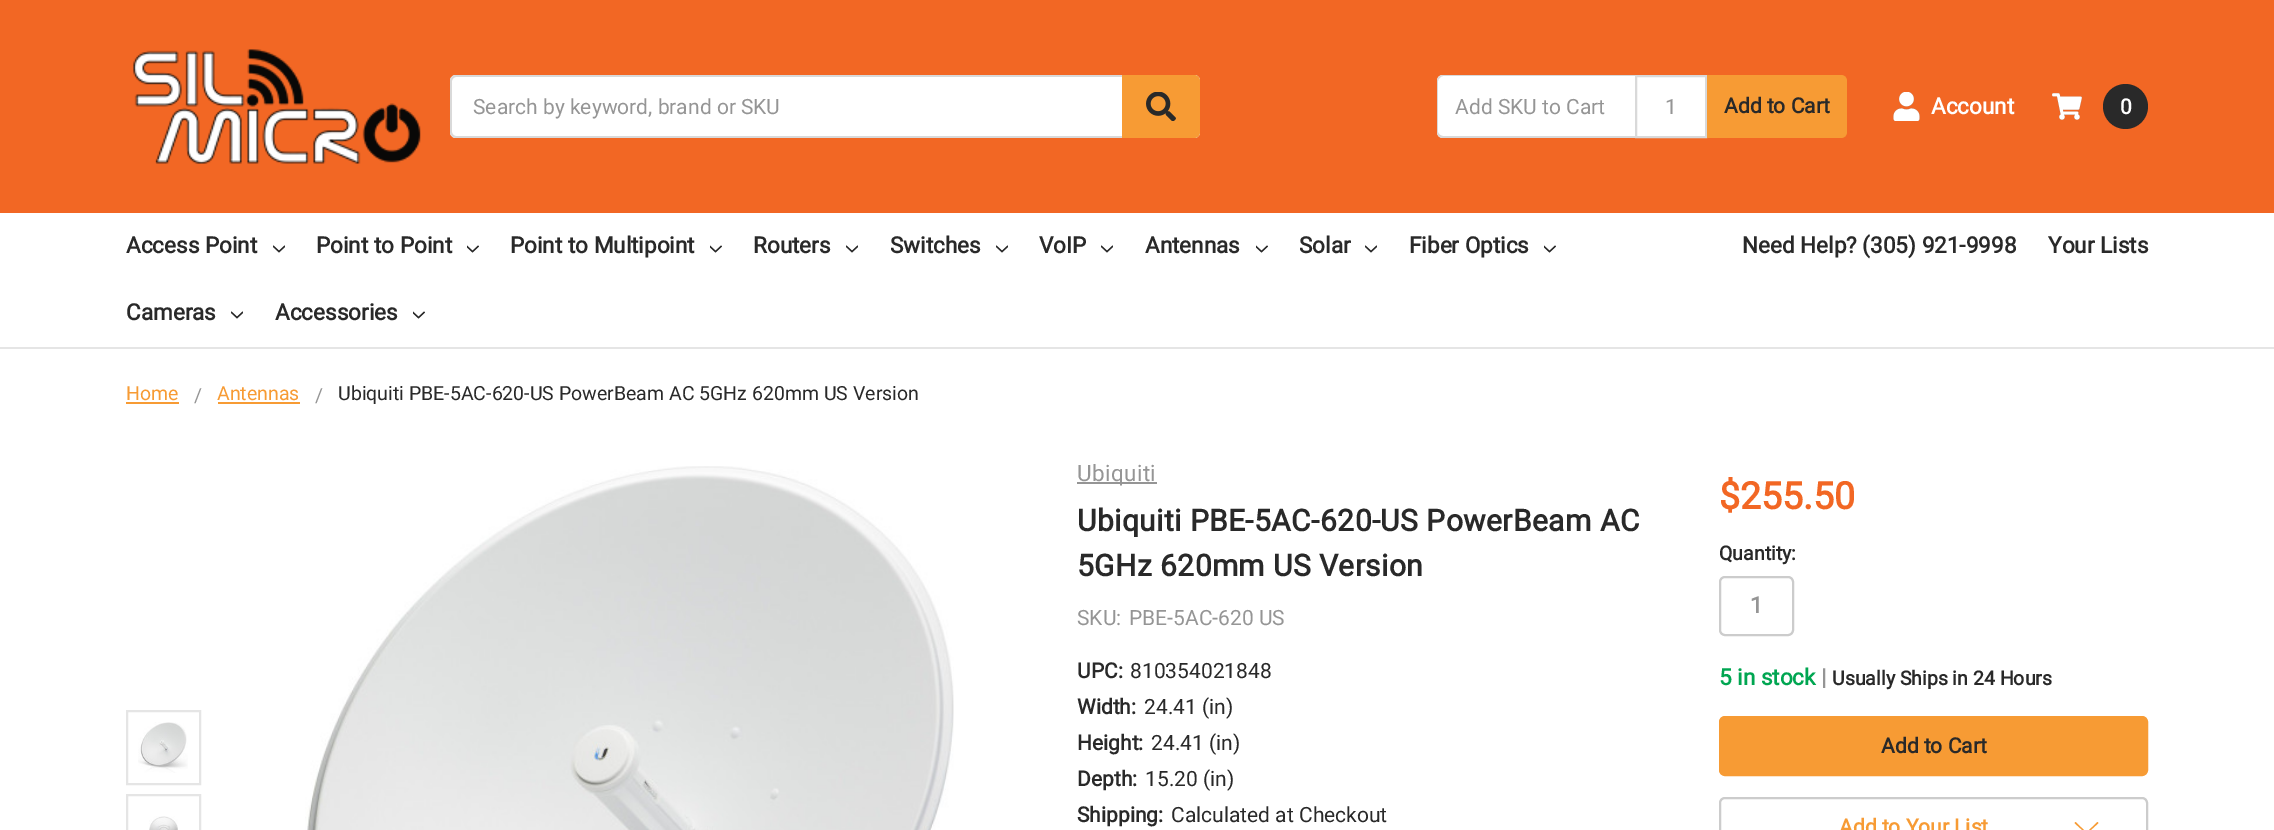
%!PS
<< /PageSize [2274 830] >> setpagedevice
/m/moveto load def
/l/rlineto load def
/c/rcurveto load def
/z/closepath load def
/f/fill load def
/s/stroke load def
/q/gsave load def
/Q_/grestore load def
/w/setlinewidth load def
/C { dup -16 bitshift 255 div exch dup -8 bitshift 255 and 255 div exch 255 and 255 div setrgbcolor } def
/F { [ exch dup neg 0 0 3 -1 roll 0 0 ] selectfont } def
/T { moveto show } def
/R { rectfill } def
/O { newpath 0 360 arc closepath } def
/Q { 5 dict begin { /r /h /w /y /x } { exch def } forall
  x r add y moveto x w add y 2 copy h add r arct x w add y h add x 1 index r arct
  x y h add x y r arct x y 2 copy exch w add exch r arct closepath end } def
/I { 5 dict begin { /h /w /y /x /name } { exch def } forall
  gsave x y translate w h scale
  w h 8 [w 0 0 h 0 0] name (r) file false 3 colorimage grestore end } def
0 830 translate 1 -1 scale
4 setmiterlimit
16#FFFFFF C
0 0 2274 830 R
16#F26724 C
0 0 2274 213 R
16#E5E5E5 C
0 347 2274 2 R
(1.rgb) 133 49 288 115 I
16#FFFFFF C
450 75 750 63 6 Q f
16#D9D9D9 C
456 75 m -3 0 -6 3 -6 6 c 0 51 l 0 3 3 6 6 6 c 738 0 l 3 0 6 -3 6 -6 c 0 -51 l 0 -3 -3 -6 -6 -6 c z 456 77 m -2 0 -4 2 -4 4 c 0 51 l 0 2 2 4 4 4 c 742 0 l 0 -59 l z eofill
/Roboto-Regular 21 F
16#959595 C
(Search by keyword, brand or SKU) 473 114 T
16#F79B34 C
1122 75 m 72 0 l 3.5 0 6 2.5 6 6 c 0 51 l 0 3.5 -2.5 6 -6 6 c -72 0 l z f
(2.rgb) 1146 92 30 29 I
16#FFFFFF C
1443 75 m 192 0 l 0 63 l -192 0 l -3.5 0 -6 -2.5 -6 -6 c 0 -51 l 0 -3.5 2.5 -6 6 -6 c z f
16#D9D9D9 C
1443 75 m 192 0 l 0 63 l -192 0 l -3 0 -6 -3 -6 -6 c 0 -51 l 0 -3 3 -6 6 -6 c z 1443 76 m 192 0 l 0 60 l -192 0 l -2 0 -5 -2 -5 -4 c 0 -51 l 0 -2 3 -5 5 -5 c z eofill
16#959595 C
(Add SKU to Cart) 1455 114 T
16#FFFFFF C
1636 76 m 70 0 l 0 61 l -70 0 l z q f Q_
16#D9D9D9 C
2 w
s
16#959595 C
(1) 1665 114 T
16#F79B34 C
1707 75 m 134 0 l 3.5 0 6 2.5 6 6 c 0 51 l 0 3.5 -2.5 6 -6 6 c -134 0 l z f
/Roboto-Bold 21 F
16#292929 C
(Add to Cart) 1724 113 T
(3.rgb) 1893 92 27 29 I
/Roboto-Bold 22.5 F
16#FFFFFF C
(Account) 1931 114 T
(4.rgb) 2052 93 30 27 I
16#292929 C
2125.5 106.5 22.5 O f
/Roboto-Bold 21 F
16#FFFFFF C
(0) 2120 114 T
/Roboto-Bold 22.5 F
16#292929 C
(Access Point) 126 253 T
(5.rgb) 273 245 12 8 I
(Point to Point) 316 253 T
(6.rgb) 467 245 12 8 I
(Point to Multipoint) 510 253 T
(6.rgb) 710 245 12 8 I
(Routers) 753 253 T
(5.rgb) 846 245 12 8 I
(Switches) 890 253 T
(5.rgb) 996 245 12 8 I
(VoIP) 1039 253 T
(5.rgb) 1101 245 12 8 I
(Antennas) 1145 253 T
(6.rgb) 1256 245 12 8 I
(Solar) 1299 253 T
(5.rgb) 1365 245 12 8 I
(Fiber Optics) 1409 253 T
(6.rgb) 1544 245 12 8 I
(Cameras) 126 320 T
(5.rgb) 231 311 12 8 I
(Accessories) 275 320 T
(6.rgb) 413 311 12 8 I
(Need Help? \(305\) 921-9998) 1742 253 T
(Your Lists) 2048 253 T
/Roboto-Regular 19.5 F
16#F79B34 C
(Home) 126 400 T
126 402 53 2 R
16#959595 C
(/) 194 402 T
16#F79B34 C
(Antennas) 217 400 T
218 402 82 2 R
16#959595 C
(/) 315 402 T
16#292929 C
(Ubiquiti PBE-5AC-620-US PowerBeam AC 5GHz 620mm US Version) 338 400 T
16#E5E5E5 C
127 711 73 73 rectstroke
(7.rgb) 138 722 50 51 I
127 795 73 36 rectstroke
(8.rgb) 149 816 29 14 I
(9.rgb) 305 466 649 364 I
16#959595 C
1077 482 80 2 R
/Roboto-Regular 22.5 F
1077 481 m .4 0 (Ubiquiti) ashow
/Roboto-Bold 30 F
16#292929 C
1077 531 m .4 0 (Ubiquiti PBE-5AC-620-US PowerBeam AC) ashow
1077 576 m .4 0 (5GHz 620mm US Version) ashow
/Roboto-Regular 21 F
16#959595 C
(SKU:) 1077 625 T
(PBE-5AC-620 US) 1129 625 T
/Roboto-Bold 37.5 F
16#F26724 C
($255.50) 1719 509 T
/Roboto-Bold 21 F
16#292929 C
(UPC:) 1077 678 T
/Roboto-Regular 21 F
(810354021848) 1130 678 T
/Roboto-Bold 21 F
(Width:) 1077 714 T
/Roboto-Regular 21 F
(24.41 \(in\)) 1144 714 T
/Roboto-Bold 21 F
(Height:) 1077 750 T
/Roboto-Regular 21 F
(24.41 \(in\)) 1151 750 T
/Roboto-Bold 21 F
(Depth:) 1077 786 T
/Roboto-Regular 21 F
(15.20 \(in\)) 1145 786 T
/Roboto-Bold 21 F
(Shipping:) 1077 822 T
/Roboto-Regular 21 F
(Calculated at Checkout) 1171 822 T
/Roboto-Bold 19.5 F
(Quantity:) 1719 560 T
16#CCCCCC C
1720 577 73 58 5 Q s
/Roboto-Bold 22.5 F
16#959595 C
(1) 1750 613 T
16#00A651 C
(5 in stock) 1719 685 T
16#959595 C
(|) 1821 685 T
/Roboto-Bold 19.5 F
16#292929 C
(Usually Ships in 24 Hours) 1832 685 T
16#F79B34 C
1720 717 427 58 5 Q q f Q_
s
/Roboto-Bold 21 F
16#292929 C
(Add to Cart) 1881 753 T
16#CCCCCC C
1720 798 427 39 5 Q s
16#F79B34 C
(Add to Your List) 1839 834 T
2086.5 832.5 m 11 -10.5 l 1 1 l -12 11 l -12 -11 l 1 -1 l z eofill
showpage
